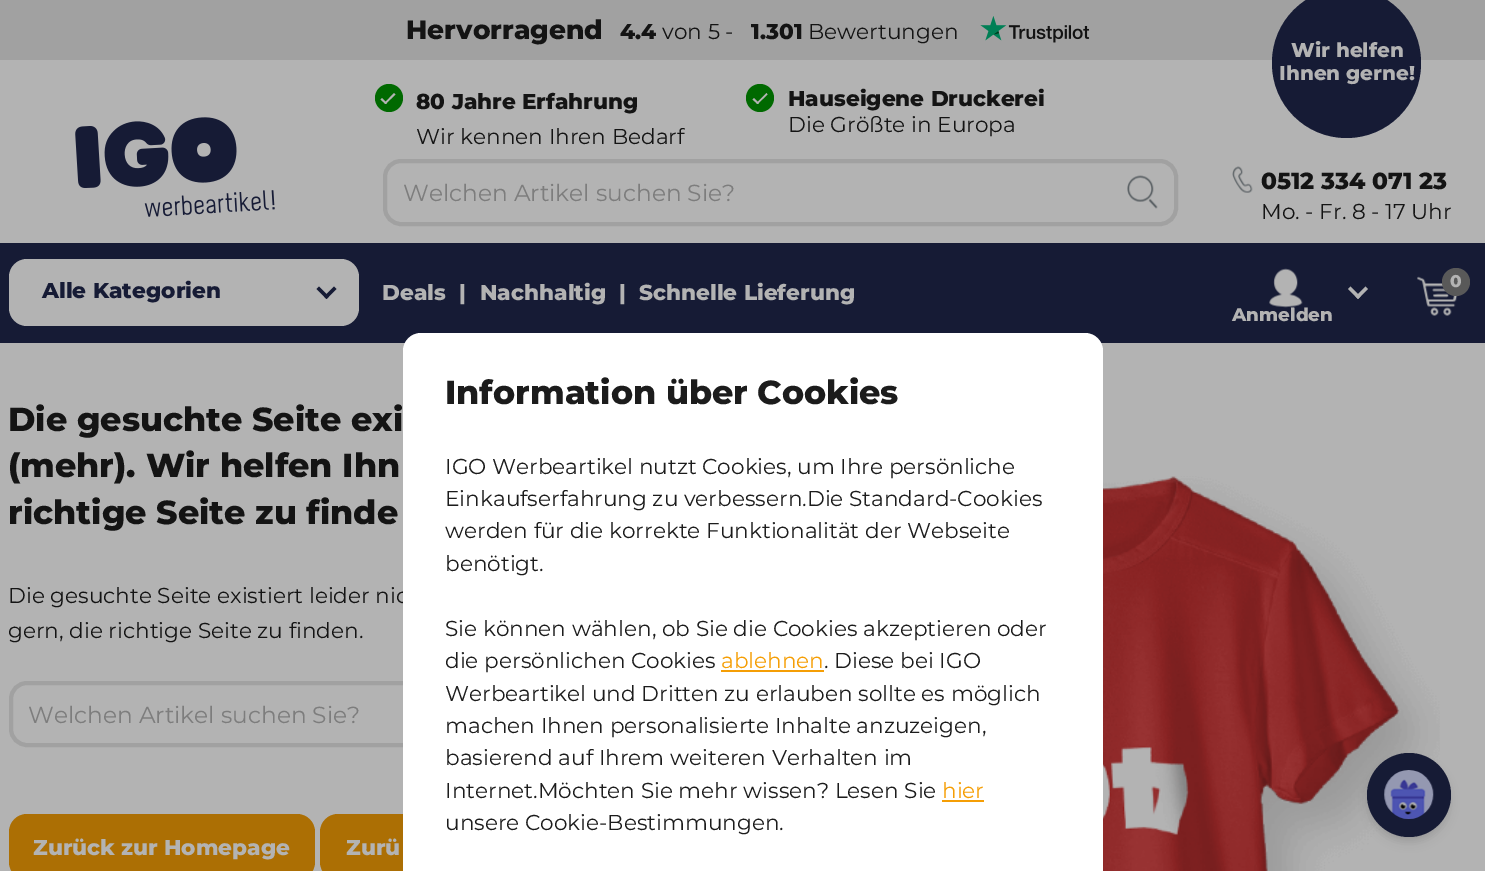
%!PS
<< /PageSize [1485 871] /PageUsesTransparency true >> setpagedevice
/m/moveto load def
/l/rlineto load def
/z/closepath load def
/f/fill load def
/s/stroke load def
/w/setlinewidth load def
/C { dup -16 bitshift 255 div exch dup -8 bitshift 255 and 255 div exch 255 and 255 div setrgbcolor } def
/F { [ exch dup neg 0 0 3 -1 roll 0 0 ] selectfont } def
/T { moveto show } def
/R { rectfill } def
/A { dup .setfillconstantalpha .setstrokeconstantalpha } def
/O { newpath 0 360 arc closepath } def
/Q { 5 dict begin { /r /h /w /y /x } { exch def } forall
  x r add y moveto x w add y 2 copy h add r arct x w add y h add x 1 index r arct
  x y h add x y r arct x y 2 copy exch w add exch r arct closepath end } def
/S { 12 dict begin { /a /b /q /h /w /y /x } { exch def } forall gsave /was 0 def
  9 -2 -9 { dup b mul 4 div /e exch def 1 sub .425 mul 2.718 exch exp 1 add a .99 .min exch div /now exch def
    1 1 now sub 1 was sub div sub A /was now def
    w h .min e 2 mul add 0 gt { x e sub y e sub w e 2 mul add h e 2 mul add
      q e add b .6 mul add w h .min 2 div e add .min 0 .max Q fill } if } for grestore end } def
/I { 5 dict begin { /h /w /y /x /name } { exch def } forall
  gsave x y translate w h scale
  w h 8 [w 0 0 h 0 0] name (r) file false 3 colorimage grestore end } def
0 .pushpdf14devicefilter
0 871 translate 1 -1 scale
4 setmiterlimit
16#B3B3B3 C
0 0 1485 871 R
16#A1A1A1 C
0 0 1485 60 R
/Montserrat-ExtraBold 26.5 F
16#141414 C
(Hervorragend) 406 39 T
/Montserrat-ExtraBold 21.6 F
(4.4) 620 39 T
/Montserrat-Regular 21.6 F
(von 5 -) 662 39 T
/Montserrat-ExtraBold 21.6 F
(1.301) 751 39 T
/Montserrat-Regular 21.6 F
(Bewertungen) 808 39 T
(1.rgb) 980 16 110 27 I
16#A1A1A1 C
4 w
385 161 791 63 16 Q s
/Montserrat-Regular 23.25 F
16#7D7D7D C
(Welchen Artikel suchen Sie?) 403 201 T
(2.rgb) 1127 175 31 34 I
16#161B35 C
1272 -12 149 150 74.5 Q f
/Montserrat-ExtraBold 20 F
16#B3B3B3 C
(Wir helfen) 1291 57 T
(Ihnen gerne!) 1279 80 T
(3.rgb) 1232 166 21 27 I
/Montserrat-ExtraBold 23.25 F
16#141414 C
(0512 334 071 23) 1261 189 T
/Montserrat-Regular 21.6 F
(Mo. - Fr. 8 - 17 Uhr) 1261 219 T
16#161B35 C
0 243 1485 100 R
16#B3B3B3 C
9 259 350 67 18 Q f
/Montserrat-ExtraBold 21.6 F
16#161B35 C
(Alle Kategorien) 42 298 T
324 296.5 m 10 -10 l 2.5 2.5 l -10 10 l z f
316.5 289 m 2.5 -2.5 l 10 10 l -2.5 2.5 l z f
(4.rgb) 1417 276 41 40 I
16#595959 C
1456 282 14 O f
/Montserrat-ExtraBold 17 F
16#B3B3B3 C
(0) 1450 287 T
/Montserrat-ExtraBold 18.25 F
(Anmelden) 1232 321 T
(5.rgb) 1269 268 34 40 I
1355.5 296.5 m 10 -10 l 2.5 2.5 l -10 10 l z f
1348 289 m 2.5 -2.5 l 10 10 l -2.5 2.5 l z f
(6.rgb) 75 117 200 100 I
16#006900 C
389 98 14 O f
/Montserrat-ExtraBold 21.6 F
16#141414 C
(80 Jahre Erfahrung) 416 109 T
/Montserrat-Regular 21.6 F
(Wir kennen Ihren Bedarf) 416 144 T
16#B3B3B3 C
394 93 m 1.5 1.5 l -10 9.5 l -1 -1 l z f
382 98 m 5 5 l -1.5 1 l -5 -4.5 l z f
16#006900 C
760 98 14 O f
/Montserrat-ExtraBold 21.6 F
16#141414 C
(Hauseigene Druckerei) 788 106 T
16#B3B3B3 C
766.5 93 m 1 1.5 l -10 9.5 l -1 -1 l z f
754 98 m 5 5 l -1.5 1 l -5 -4.5 l z f
/Montserrat-Regular 21.6 F
16#141414 C
(Die Größte in Europa) 788 132 T
/Montserrat-ExtraBold 21.6 F
16#B3B3B3 C
(Deals) 382 300 T
(|) 459 300 T
(Nachhaltig) 480 300 T
(|) 619 300 T
(Schnelle Lieferung) 639 300 T
/Montserrat-ExtraBold 33.25 F
16#141414 C
(Die gesuchte Seite exi) 8 431 T
(\(mehr\). Wir helfen Ihn) 8 477 T
(richtige Seite zu finde) 8 524 T
/Montserrat-Regular 21.6 F
(Die gesuchte Seite existiert leider nic) 8 603 T
(gern, die richtige Seite zu finden.) 8 638 T
16#A1A1A1 C
11 683 722 62 16 Q s
/Montserrat-Regular 23.25 F
16#7D7D7D C
(Welchen Artikel suchen Sie?) 28 723 T
16#AC6F04 C
9 814 306 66 18 Q f
/Montserrat-ExtraBold 21.6 F
16#B3B3B3 C
(Zurück zur Homepage) 33 855 T
16#AC6F04 C
320 814 373 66 18 Q f
16#B3B3B3 C
(Zurü) 346 855 T
(7.rgb) 1103 476 337 395 I
16#FFFFFF C
403 333 700 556 18 Q f
/Montserrat-ExtraBold 33.25 F
16#1C1C1C C
(Information über Cookies) 445 404 T
/Montserrat-Regular 21.6 F
(IGO Werbeartikel nutzt Cookies, um Ihre persönliche) 445 474 T
(Einkaufserfahrung zu verbessern.Die Standard-Cookies) 445 506 T
(werden für die korrekte Funktionalität der Webseite) 445 538 T
(benötigt.) 445 571 T
(Sie können wählen, ob Sie die Cookies akzeptieren oder) 445 636 T
(die persönlichen Cookies) 445 668 T
16#F59E05 C
(ablehnen) 721 668 T
721 670 103 2 R
16#1C1C1C C
(. Diese bei IGO) 824 668 T
(Werbeartikel und Dritten zu erlauben sollte es möglich) 445 701 T
(machen Ihnen personalisierte Inhalte anzuzeigen,) 445 733 T
(basierend auf Ihrem weiteren Verhalten im) 445 765 T
(Internet.Möchten Sie mehr wissen? Lesen Sie) 445 798 T
16#F59E05 C
(hier) 942 798 T
942 800 42 2 R
16#1C1C1C C
(unsere Cookie-Bestimmungen.) 445 830 T
16#000000 C
1370 760 77 77 38.5 3.5 .1 S
1369 761 80 81 40 5 .1 S
16#161B35 C
1409 795 42 O f
(8.rgb) 1384 770 50 49 I
.poppdf14devicefilter showpage
